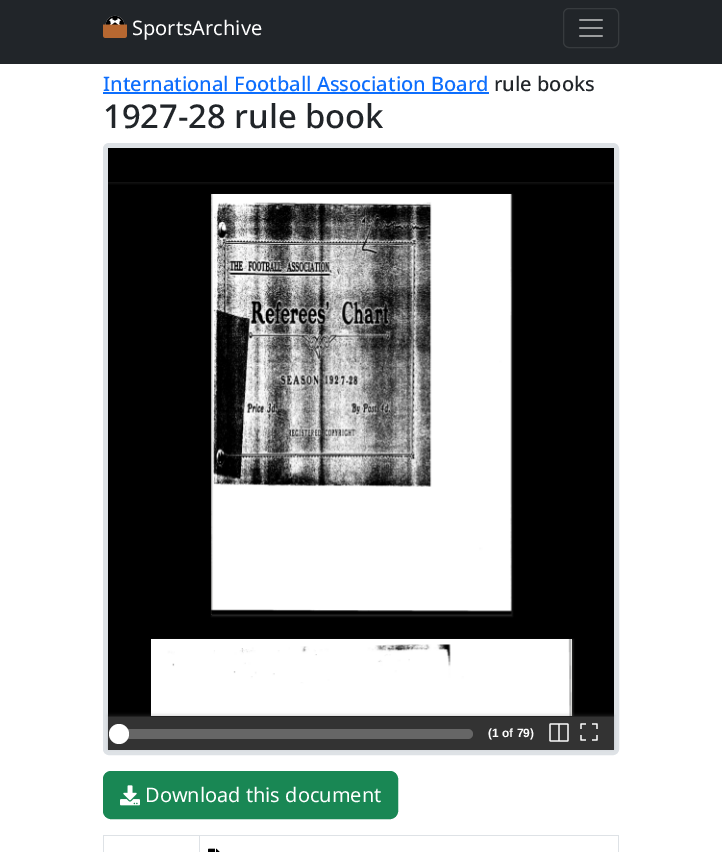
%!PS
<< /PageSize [722 852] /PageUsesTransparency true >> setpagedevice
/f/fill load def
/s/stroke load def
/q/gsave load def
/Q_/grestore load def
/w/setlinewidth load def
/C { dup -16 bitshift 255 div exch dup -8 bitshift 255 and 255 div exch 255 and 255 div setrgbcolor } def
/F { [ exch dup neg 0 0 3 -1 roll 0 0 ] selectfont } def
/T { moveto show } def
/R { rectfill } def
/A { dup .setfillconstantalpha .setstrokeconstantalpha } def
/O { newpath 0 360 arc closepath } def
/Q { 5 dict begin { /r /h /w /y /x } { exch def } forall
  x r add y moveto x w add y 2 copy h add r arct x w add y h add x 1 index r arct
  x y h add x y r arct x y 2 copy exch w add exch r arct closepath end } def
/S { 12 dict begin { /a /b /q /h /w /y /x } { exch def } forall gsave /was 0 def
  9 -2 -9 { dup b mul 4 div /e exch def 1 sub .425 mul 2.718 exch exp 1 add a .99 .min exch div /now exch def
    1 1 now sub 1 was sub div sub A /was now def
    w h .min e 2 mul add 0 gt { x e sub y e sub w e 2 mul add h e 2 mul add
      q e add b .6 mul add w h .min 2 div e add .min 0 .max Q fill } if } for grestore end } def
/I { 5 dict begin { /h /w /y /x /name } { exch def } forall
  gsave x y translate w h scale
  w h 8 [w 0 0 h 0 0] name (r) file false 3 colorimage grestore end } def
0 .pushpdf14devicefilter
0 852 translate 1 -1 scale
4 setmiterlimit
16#212529 C
0 0 722 852 R
(1.rgb) 103 15 24 23 I
/NotoSans-Regular 20 F
16#FFFFFF C
(SportsArchive) 132 35 T
16#373B3E C
563.5 8.5 55 39 5.5 Q s
(2.rgb) 579 19 24 18 I
16#FFFFFF C
0 64 722 788 R
/NotoSans-Medium 20 F
16#0D6EFD C
(International Football Association Board) 103 91 T
103 92 386 2 R
16#212529 C
(rule books) 494 91 T
/NotoSans-Medium 32.75 F
(1927-28 rule book) 103 128 T
16#DEE2E6 C
5 w
105.5 145.5 511 607 3.5 Q s
16#000000 C
108 148 506 568 R
q
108 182 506 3 rectclip
16#666666 C
108 149 506 34 0 1.5 .25 S
Q_
16#333333 C
212 195 300 421 0 1 1 S
(3.rgb) 211 194 301 421 I
(4.rgb) 211 194 301 421 I
16#198754 C
103.5 771.5 294 47 7.5 Q q f Q_
1 w
s
16#DEE2E6 C
103 835 516 1 R
199 835 1 17 R
(10.rgb) 208 848 12 4 I
q
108 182 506 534 rectclip
16#333333 C
152 640 421 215 0 1 1 S
Q_
(5.rgb) 151 639 421 77 I
(6.rgb) 172 639 400 77 I
16#666666 C
108 715 506 34 0 1.5 .25 S
16#333333 C
108 717 506 33 R
16#222222 C
108 716 506 1 R
16#666666 C
118 729 355 10 5 Q f
16#FFFFFF C
119 734 10 O f
/LiberationSans-Bold 12 F
(\(1 of 79\)) 488 737 T
(7.rgb) 549 723 20 19 I
(8.rgb) 580 723 18 18 I
(9.rgb) 120 785 20 21 I
/NotoSans-Regular 20 F
(Download this document) 145 802 T
16#DEE2E6 C
103 835 1 17 R
618 835 1 17 R
.poppdf14devicefilter showpage
